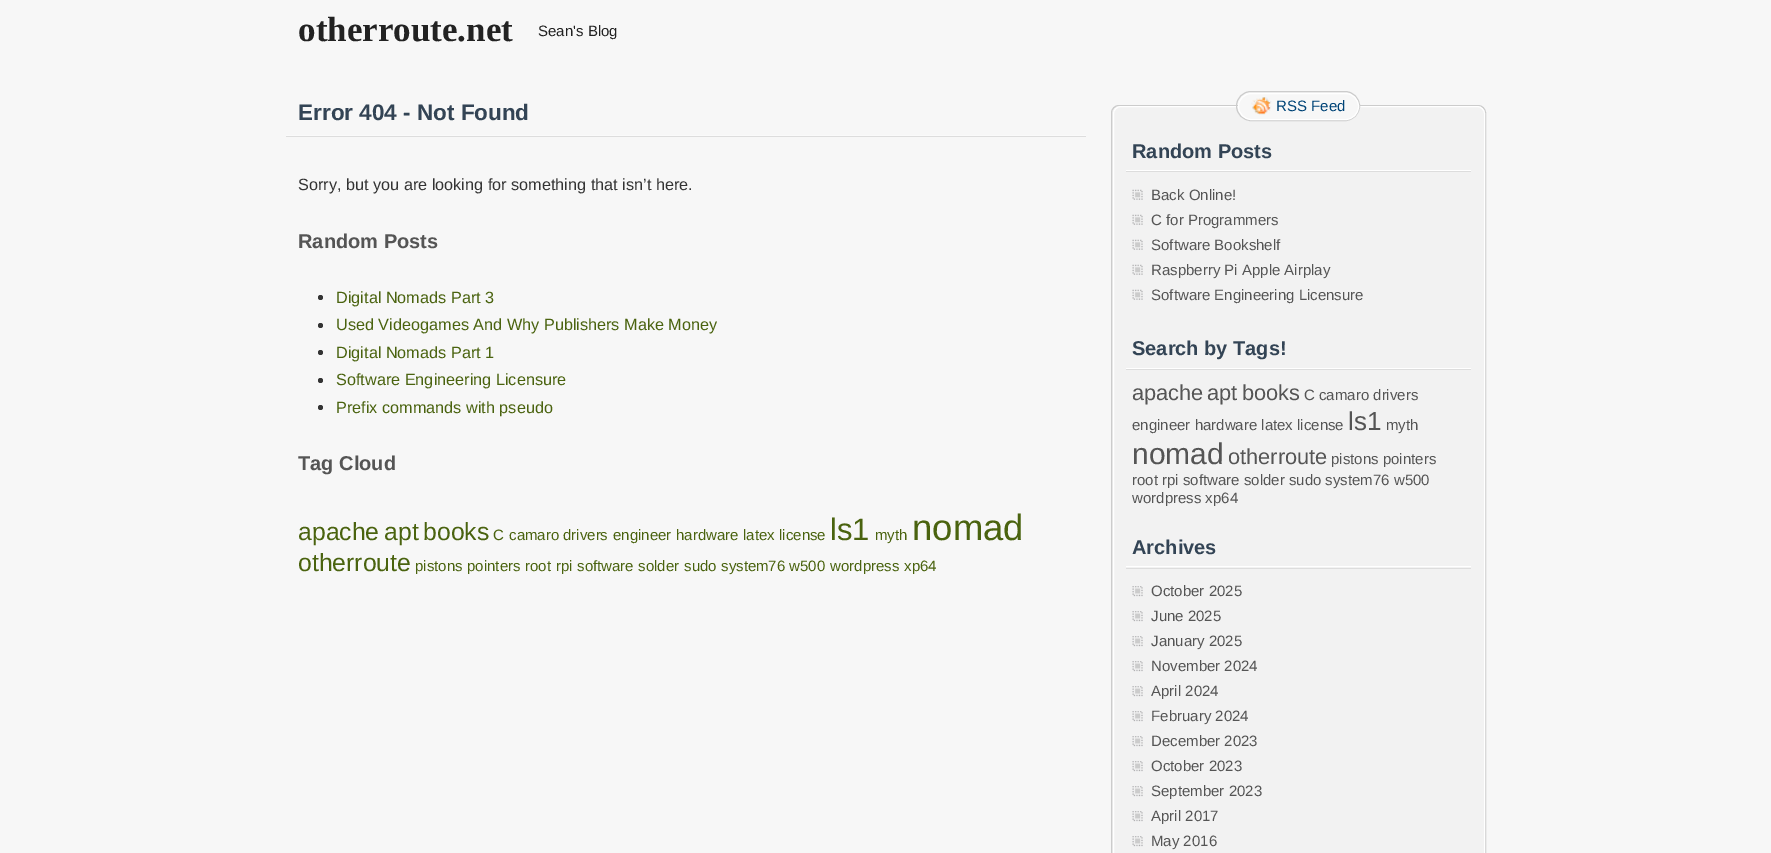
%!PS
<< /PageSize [1771 853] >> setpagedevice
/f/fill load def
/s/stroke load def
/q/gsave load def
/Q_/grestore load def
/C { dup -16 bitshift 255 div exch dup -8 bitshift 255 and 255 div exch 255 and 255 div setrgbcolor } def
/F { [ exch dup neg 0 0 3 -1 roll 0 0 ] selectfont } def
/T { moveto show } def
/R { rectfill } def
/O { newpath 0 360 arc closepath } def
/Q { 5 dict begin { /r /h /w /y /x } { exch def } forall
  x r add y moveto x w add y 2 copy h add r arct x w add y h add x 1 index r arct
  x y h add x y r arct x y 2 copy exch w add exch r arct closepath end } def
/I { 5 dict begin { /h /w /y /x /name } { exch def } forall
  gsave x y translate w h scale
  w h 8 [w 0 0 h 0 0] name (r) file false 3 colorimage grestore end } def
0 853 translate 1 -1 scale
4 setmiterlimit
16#F7F7F7 C
0 0 1771 853 R
/LiberationSerif-Bold 35 F
16#222222 C
(otherroute.net) 298 41 T
/LiberationSans-Regular 15 F
(Sean's Blog) 538 36 T
16#FAFAFA C
286 135 800 1 R
/LiberationSans-Bold 22.5 F
16#334455 C
(Error 404 - Not Found) 298 120 T
16#DDDDDD C
286 136 800 1 R
/LiberationSans-Regular 16.25 F
16#333333 C
(Sorry, but you are looking for something that isn’t here.) 298 190 T
/LiberationSans-Bold 20 F
16#555555 C
(Random Posts) 298 248 T
16#333333 C
320.5 297.5 2.5 O f
/LiberationSans-Regular 16.25 F
16#4A630F C
(Digital Nomads Part 3) 336 303 T
16#333333 C
320.5 325.5 2.5 O f
16#4A630F C
(Used Videogames And Why Publishers Make Money) 336 330 T
16#333333 C
320.5 352.5 2.5 O f
16#4A630F C
(Digital Nomads Part 1) 336 358 T
16#333333 C
320.5 380.5 2.5 O f
16#4A630F C
(Software Engineering Licensure) 336 385 T
16#333333 C
320.5 407.5 2.5 O f
16#4A630F C
(Prefix commands with pseudo) 336 413 T
/LiberationSans-Bold 20 F
16#555555 C
(Tag Cloud) 298 470 T
/LiberationSans-Regular 24.75 F
16#4A630F C
(apache) 298 540 T
(apt) 384 540 T
(books) 423 540 T
/LiberationSans-Regular 15 F
(C) 493 540 T
(camaro) 509 540 T
(drivers) 563 540 T
(engineer) 613 540 T
(hardware) 676 540 T
(latex) 743 540 T
(license) 779 540 T
/LiberationSans-Regular 31 F
(ls1) 830 540 T
/LiberationSans-Regular 15 F
(myth) 875 540 T
/LiberationSans-Regular 36.5 F
(nomad) 912 540 T
/LiberationSans-Regular 24.75 F
(otherroute) 298 571 T
/LiberationSans-Regular 15 F
(pistons) 415 571 T
(pointers) 467 571 T
(root) 525 571 T
(rpi) 556 571 T
(software) 577 571 T
(solder) 638 571 T
(sudo) 684 571 T
(system76) 721 571 T
(w500) 789 571 T
(wordpress) 830 571 T
(xp64) 904 571 T
16#F2F2F2 C
1111.5 105.5 374 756 7.5 Q q f Q_
16#CCCCCC C
s
16#FFFFFF C
1113.5 106.5 371 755 7.5 Q s
16#CCCCCC C
1236.5 91.5 123 29 14.5 Q s
16#F7F7F7 C
1238.5 93.5 120 26 13 Q q f Q_
16#FFFFFF C
s
(1.rgb) 1251 97 21 18 I
16#004477 C
(RSS Feed) 1276 111 T
16#FFFFFF C
1126 170 345 1 R
/LiberationSans-Bold 20 F
16#334455 C
(Random Posts) 1132 158 T
16#DDDDDD C
1126 171 345 1 R
(2.rgb) 1132 189 11 11 I
/LiberationSans-Regular 15 F
16#555555 C
(Back Online!) 1151 200 T
(2.rgb) 1132 214 11 11 I
(C for Programmers) 1151 225 T
(2.rgb) 1132 239 11 11 I
(Software Bookshelf) 1151 250 T
(2.rgb) 1132 264 11 11 I
(Raspberry Pi Apple Airplay) 1151 275 T
(2.rgb) 1132 289 11 11 I
(Software Engineering Licensure) 1151 300 T
16#FFFFFF C
1126 368 345 1 R
/LiberationSans-Bold 20 F
16#334455 C
(Search by Tags!) 1132 355 T
16#DDDDDD C
1126 369 345 1 R
/LiberationSans-Regular 21.75 F
16#555555 C
(apache) 1132 400 T
(apt) 1207 400 T
(books) 1242 400 T
/LiberationSans-Regular 15 F
(C camaro drivers) 1304 400 T
(engineer hardware latex license) 1132 430 T
/LiberationSans-Regular 26 F
(ls1) 1348 430 T
/LiberationSans-Regular 15 F
(myth) 1386 430 T
/LiberationSans-Regular 30 F
(nomad) 1132 464 T
/LiberationSans-Regular 21.75 F
(otherroute) 1228 464 T
/LiberationSans-Regular 15 F
(pistons pointers) 1331 464 T
(root rpi software solder sudo system76 w500) 1132 485 T
(wordpress xp64) 1132 503 T
16#FFFFFF C
1126 566 345 1 R
/LiberationSans-Bold 20 F
16#334455 C
(Archives) 1132 554 T
16#DDDDDD C
1126 568 345 1 R
(3.rgb) 1132 586 11 11 I
/LiberationSans-Regular 15 F
16#555555 C
(October 2025) 1151 596 T
(3.rgb) 1132 611 11 11 I
(June 2025) 1151 621 T
(3.rgb) 1132 636 11 11 I
(January 2025) 1151 646 T
(3.rgb) 1132 661 11 11 I
(November 2024) 1151 671 T
(4.rgb) 1132 686 11 11 I
(April 2024) 1151 696 T
(3.rgb) 1132 711 11 11 I
(February 2024) 1151 721 T
(3.rgb) 1132 736 11 11 I
(December 2023) 1151 746 T
(3.rgb) 1132 761 11 11 I
(October 2023) 1151 771 T
(3.rgb) 1132 786 11 11 I
(September 2023) 1151 796 T
(3.rgb) 1132 811 11 11 I
(April 2017) 1151 821 T
(3.rgb) 1132 836 11 11 I
(May 2016) 1151 846 T
showpage
